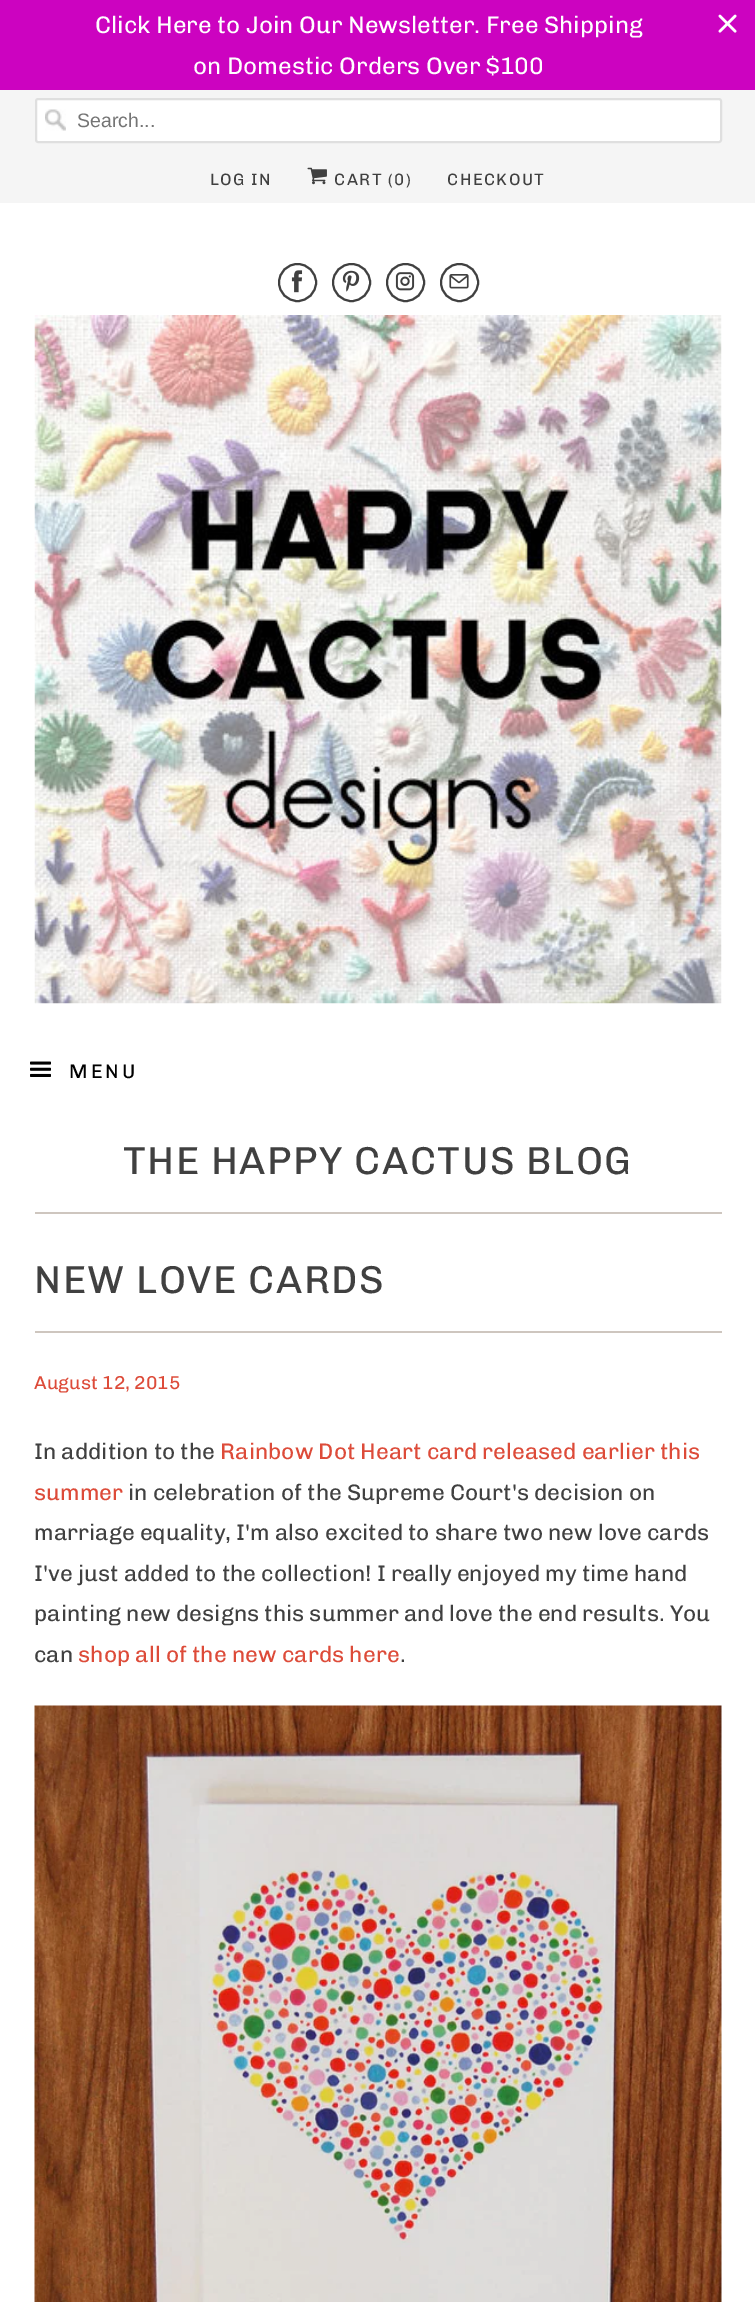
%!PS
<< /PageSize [755 2302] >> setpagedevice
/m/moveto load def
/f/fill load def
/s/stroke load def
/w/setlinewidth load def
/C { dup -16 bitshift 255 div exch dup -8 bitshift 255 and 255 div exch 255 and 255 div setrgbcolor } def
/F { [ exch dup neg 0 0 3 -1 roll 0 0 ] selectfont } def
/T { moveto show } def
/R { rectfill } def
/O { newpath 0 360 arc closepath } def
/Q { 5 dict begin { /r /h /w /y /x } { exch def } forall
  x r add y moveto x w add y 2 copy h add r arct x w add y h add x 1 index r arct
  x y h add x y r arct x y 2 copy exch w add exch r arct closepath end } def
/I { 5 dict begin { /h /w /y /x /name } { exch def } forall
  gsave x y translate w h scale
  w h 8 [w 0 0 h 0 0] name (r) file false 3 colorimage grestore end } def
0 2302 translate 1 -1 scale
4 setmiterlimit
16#FFFFFF C
0 0 755 2302 R
16#CC03C0 C
0 0 755 90 R
/Chivo-Regular 24 F
16#FFFFFF C
(Click Here to Join Our Newsletter. Free Shipping) 95 33 T
(on Domestic Orders Over $100) 193 74 T
(1.rgb) 718 14 19 19 I
16#F5F5F5 C
0 90 755 113 R
16#FFFFFF C
35 98 687 45 3 Q f
(2.rgb) 45 109 21 22 I
16#DFDFDF C
2 w
36 99 685 43 2 Q s
/LiberationSans-Regular 19.5 F
16#757575 C
(Search...) 77 127 T
/Chivo-Regular 16.5 F
16#404040 C
210 185 m 1.5 0 (LOG IN) ashow
(3.rgb) 307 167 20 18 I
334 185 m 1.5 0 (CART \(0\)) ashow
447 185 m 1.5 0 (CHECKOUT) ashow
297.5 282.5 18.5 O s
(4.rgb) 291 270 12 23 I
351.5 282.5 18.5 O s
(5.rgb) 342 270 18 22 I
405.5 282.5 18.5 O s
(6.rgb) 395 272 20 19 I
459.5 282.5 18.5 O s
(7.rgb) 449 274 20 15 I
(8.rgb) 34 315 688 689 I
(9.rgb) 30 1061 21 16 I
/Chivo-Regular 19.5 F
16#000000 C
69 1078 m 3 0 (MENU) ashow
16#CEC6BF C
35 1212 687 2 R
/Chivo-Regular 39 F
16#404040 C
123 1174 m 1.5 0 (THE HAPPY CACTUS BLOG) ashow
16#CEC6BF C
35 1331 687 2 R
16#404040 C
34 1293 m 1.5 0 (NEW LOVE CARDS) ashow
/Chivo-Regular 18.75 F
16#DD4B39 C
(August 12, 2015) 34 1389 T
/Chivo-Regular 22.5 F
16#404040 C
(In addition to the) 34 1459 T
16#DD4B39 C
(Rainbow Dot Heart card released earlier this) 220 1459 T
(summer) 34 1500 T
16#404040 C
(in celebration of the Supreme Court's decision on) 128 1500 T
(marriage equality, I'm also excited to share two new love cards) 34 1540 T
(I've just added to the collection! I really enjoyed my time hand) 34 1581 T
(painting new designs this summer and love the end results. You) 34 1621 T
(can) 34 1662 T
16#DD4B39 C
(shop all of the new cards here) 78 1662 T
16#404040 C
(.) 400 1662 T
(10.rgb) 34 1705 688 597 I
showpage
